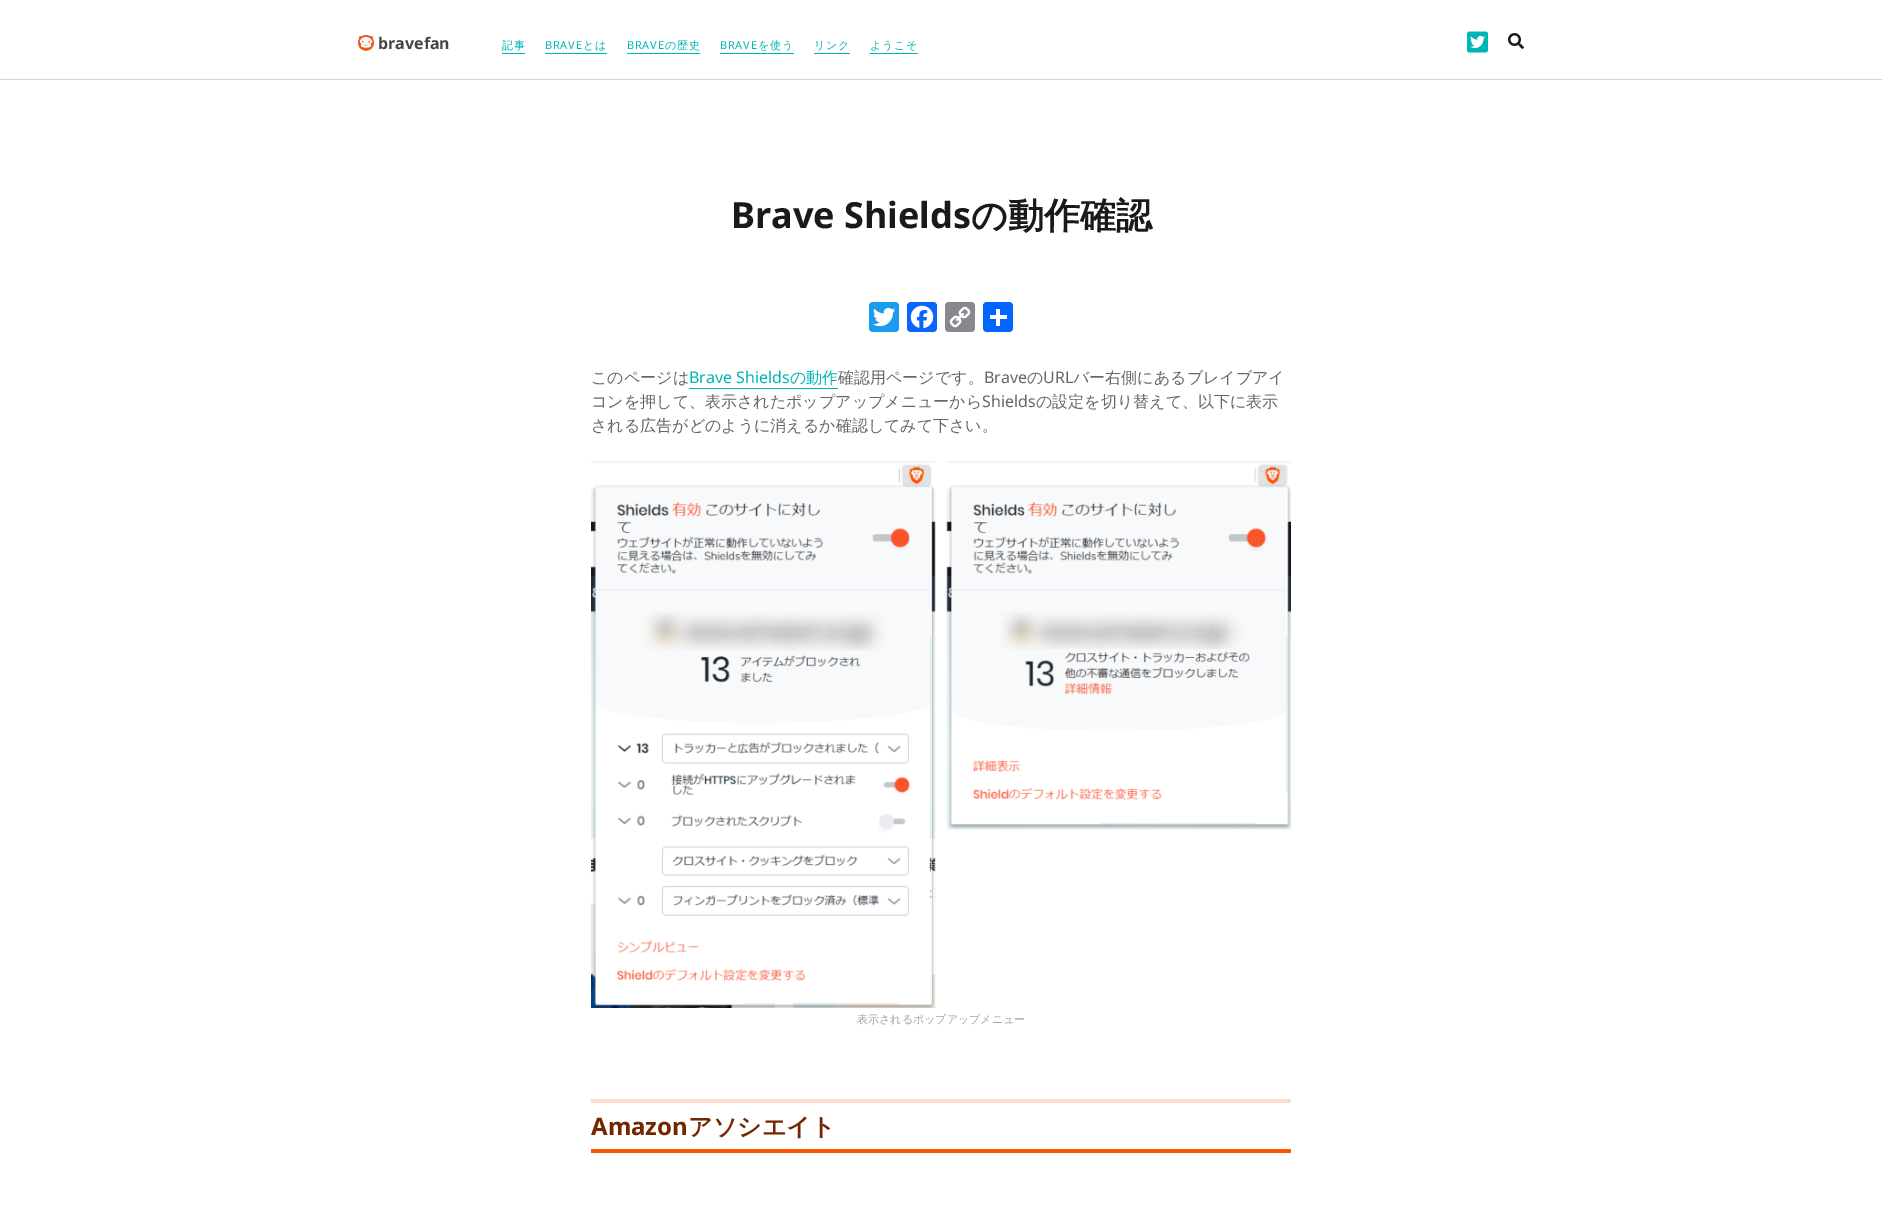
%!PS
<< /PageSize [1882 1219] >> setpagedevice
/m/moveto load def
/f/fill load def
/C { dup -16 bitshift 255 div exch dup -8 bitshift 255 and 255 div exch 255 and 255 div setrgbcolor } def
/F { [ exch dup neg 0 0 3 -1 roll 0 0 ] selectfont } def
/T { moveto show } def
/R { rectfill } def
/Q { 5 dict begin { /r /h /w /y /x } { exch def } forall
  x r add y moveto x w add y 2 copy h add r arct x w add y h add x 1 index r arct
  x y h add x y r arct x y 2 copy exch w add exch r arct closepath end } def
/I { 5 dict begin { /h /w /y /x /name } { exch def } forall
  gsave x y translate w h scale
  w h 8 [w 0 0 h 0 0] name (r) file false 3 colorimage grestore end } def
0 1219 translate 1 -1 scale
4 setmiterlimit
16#FFFFFF C
0 0 1882 1219 R
(1.rgb) 358 35 16 16 I
/NotoSans-Bold 16 F
16#454545 C
(bravefan) 378 49 T
16#00B5B5 C
502 53 23 1 R
/WenQuanYiZenHei-Medium 11 F
502 49 m .75 0 (記事) ashow
545 53 62 1 R
/NotoSans-Regular 11 F
545 49 m .75 0 (BRAVE) ashow
/WenQuanYiZenHei-Medium 11 F
583 49 m .75 0 (とは) ashow
627 53 73 1 R
/NotoSans-Regular 11 F
627 49 m .75 0 (BRAVE) ashow
/WenQuanYiZenHei-Medium 11 F
665 49 m .75 0 (の歴史) ashow
720 53 74 1 R
/NotoSans-Regular 11 F
720 49 m .75 0 (BRAVE) ashow
/WenQuanYiZenHei-Medium 11 F
758 49 m .75 0 (を使う) ashow
814 53 36 1 R
814 49 m .75 0 (リンク) ashow
870 53 48 1 R
870 49 m .75 0 (ようこそ) ashow
(2.rgb) 1467 31 21 22 I
(3.rgb) 1508 33 16 16 I
16#D4D4D4 C
0 79 1882 1 R
/NotoSans-Bold 36 F
16#1A1A1A C
(Brave Shields) 731 228 T
/WenQuanYiZenHei-Bold 36 F
(の動作確認) 971 228 T
16#1D9BF0 C
869 302 30 30 4 Q f
(4.rgb) 873 307 23 20 I
16#0866FF C
907 302 30 30 4 Q f
(5.rgb) 910 305 24 24 I
16#888990 C
945 302 30 30 4 Q f
(6.rgb) 949 306 22 22 I
16#0166FF C
983 302 30 30 4 Q f
16#FFFFFF C
996 309 4 17 R
990 315 17 4 R
/WenQuanYiZenHei-Medium 16 F
16#666666 C
(このページは) 591 383 T
/NotoSans-Regular 16 F
16#00B5B5 C
(Brave Shields) 689 383 T
/WenQuanYiZenHei-Medium 16 F
(の動作) 790 383 T
689 388 149 1 R
16#666666 C
(確認用ページです。) 838 383 T
/NotoSans-Regular 16 F
(Brave) 984 383 T
/WenQuanYiZenHei-Medium 16 F
(の) 1027 383 T
/NotoSans-Regular 16 F
(URL) 1043 383 T
/WenQuanYiZenHei-Medium 16 F
(バー右側にあるブレイブアイ) 1073 383 T
(コンを押して、表示されたポップアップメニューから) 591 407 T
/NotoSans-Regular 16 F
(Shields) 982 407 T
/WenQuanYiZenHei-Medium 16 F
(の設定を切り替えて、以下に表示) 1036 407 T
(される広告がどのように消えるか確認してみて下さい。) 591 431 T
(7.rgb) 591 461 700 547 I
/WenQuanYiZenHei-Medium 11 F
16#A1A1A1 C
(表示されるポップアップメニュー) 857 1023 T
16#FFDDCC C
591 1099 700 4 R
16#FF5500 C
591 1149 700 4 R
/NotoSans-Bold 24 F
16#732600 C
(Amazon) 591 1135 T
/WenQuanYiZenHei-Bold 24 F
(アソシエイト) 688 1135 T
showpage
